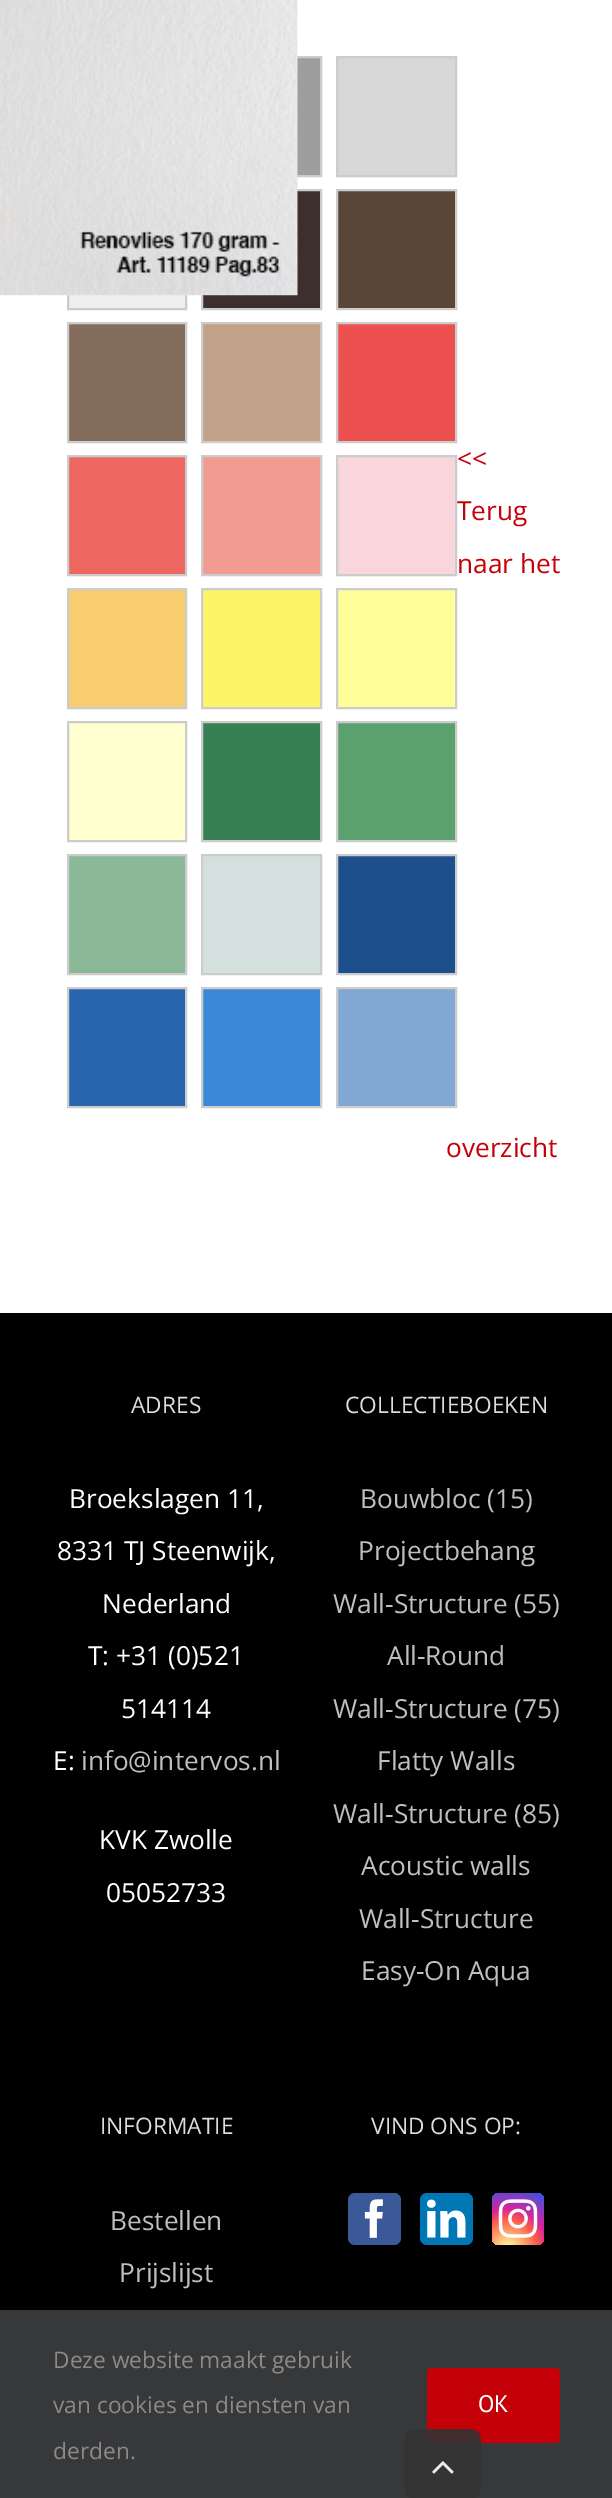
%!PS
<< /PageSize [612 2498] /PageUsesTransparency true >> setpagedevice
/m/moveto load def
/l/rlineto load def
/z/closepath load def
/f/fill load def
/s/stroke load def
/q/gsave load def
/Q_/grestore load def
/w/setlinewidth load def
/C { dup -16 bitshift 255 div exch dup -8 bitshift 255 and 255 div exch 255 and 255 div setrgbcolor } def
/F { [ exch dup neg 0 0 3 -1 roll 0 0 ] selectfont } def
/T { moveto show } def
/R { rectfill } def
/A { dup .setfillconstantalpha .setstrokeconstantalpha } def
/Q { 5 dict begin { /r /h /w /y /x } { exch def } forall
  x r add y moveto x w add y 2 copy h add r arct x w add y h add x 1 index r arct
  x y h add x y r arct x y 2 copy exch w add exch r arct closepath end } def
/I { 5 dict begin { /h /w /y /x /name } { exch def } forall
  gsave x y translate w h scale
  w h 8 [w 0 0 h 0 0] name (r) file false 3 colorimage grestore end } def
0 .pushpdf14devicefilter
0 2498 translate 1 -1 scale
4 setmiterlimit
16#FFFFFF C
0 0 612 2498 R
16#9E9E9E C
297 58 23 117 R
16#CCCCCC C
2 w
202 57 119 119 rectstroke
16#EFEFEF C
69 295 116 13 R
16#CCCCCC C
68 190 118 119 rectstroke
16#3D2F2E C
202 190 m 119 0 l 0 119 l -119 0 l z q f Q_
16#CCCCCC C
s
(1.rgb) 0 0 298 296 I
16#D7D7D7 C
337 57 m 119 0 l 0 119 l -119 0 l z q f Q_
16#CCCCCC C
s
16#594636 C
337 190 m 119 0 l 0 119 l -119 0 l z q f Q_
16#CCCCCC C
s
16#846C5C C
68 323 m 118 0 l 0 119 l -118 0 l z q f Q_
16#CCCCCC C
s
16#C1A187 C
202 323 m 119 0 l 0 119 l -119 0 l z q f Q_
16#CCCCCC C
s
16#EC514F C
337 323 m 119 0 l 0 119 l -119 0 l z q f Q_
16#CCCCCC C
s
16#ED6660 C
68 456 m 118 0 l 0 119 l -118 0 l z q f Q_
16#CCCCCC C
s
16#F19B91 C
202 456 m 119 0 l 0 119 l -119 0 l z q f Q_
16#CCCCCC C
s
16#F8D6DB C
337 456 m 119 0 l 0 119 l -119 0 l z q f Q_
16#CCCCCC C
s
16#F7CD6D C
68 589 m 118 0 l 0 119 l -118 0 l z q f Q_
16#CCCCCC C
s
16#FCF568 C
202 589 m 119 0 l 0 119 l -119 0 l z q f Q_
16#CCCCCC C
s
16#FFFE99 C
337 589 m 119 0 l 0 119 l -119 0 l z q f Q_
16#CCCCCC C
s
16#FFFFCF C
68 722 m 118 0 l 0 119 l -118 0 l z q f Q_
16#CCCCCC C
s
16#368054 C
202 722 m 119 0 l 0 119 l -119 0 l z q f Q_
16#CCCCCC C
s
16#5BA16D C
337 722 m 119 0 l 0 119 l -119 0 l z q f Q_
16#CCCCCC C
s
16#8BB998 C
68 855 m 118 0 l 0 119 l -118 0 l z q f Q_
16#CCCCCC C
s
16#D4E0DE C
202 855 m 119 0 l 0 119 l -119 0 l z q f Q_
16#CCCCCC C
s
16#1E4F8D C
337 855 m 119 0 l 0 119 l -119 0 l z q f Q_
16#CCCCCC C
s
16#2863AE C
68 988 m 118 0 l 0 119 l -118 0 l z q f Q_
16#CCCCCC C
s
16#3A88D7 C
202 988 m 119 0 l 0 119 l -119 0 l z q f Q_
16#CCCCCC C
s
16#82A7D2 C
337 988 m 119 0 l 0 119 l -119 0 l z q f Q_
16#CCCCCC C
s
/OpenSans-Regular 26.25 F
16#C40009 C
(<<) 457 468 T
(Terug) 457 520 T
(naar het) 457 573 T
(overzicht) 446 1157 T
16#000000 C
0 1313 612 997 R
/OpenSans-Regular 22.75 F
16#DDDDDD C
(ADRES) 131 1413 T
/OpenSans-Regular 26.25 F
16#FFFFFF C
(Broekslagen 11,) 69 1508 T
(8331 TJ Steenwijk,) 57 1560 T
(Nederland) 102 1613 T
(T: +31 \(0\)521) 88 1665 T
(514114) 121 1718 T
(E:) 53 1770 T
16#BFBFBF C
(info@intervos.nl) 81 1770 T
16#FFFFFF C
(KVK Zwolle) 99 1849 T
(05052733) 106 1902 T
/OpenSans-Regular 22.75 F
16#DDDDDD C
(COLLECTIEBOEKEN) 345 1413 T
/OpenSans-Regular 26.25 F
16#BFBFBF C
(Bouwbloc \(15\)) 360 1508 T
(Projectbehang) 358 1560 T
(Wall-Structure \(55\)) 333 1613 T
(All-Round) 387 1665 T
(Wall-Structure \(75\)) 333 1718 T
(Flatty Walls) 377 1770 T
(Wall-Structure \(85\)) 333 1823 T
(Acoustic walls) 361 1875 T
(Wall-Structure) 359 1928 T
(Easy-On Aqua) 361 1980 T
/OpenSans-Regular 22.75 F
16#DDDDDD C
(INFORMATIE) 100 2134 T
/OpenSans-Regular 26.25 F
16#BFBFBF C
(Bestellen) 110 2230 T
(Prijslijst) 119 2282 T
/OpenSans-Regular 22.75 F
16#DDDDDD C
(VIND ONS OP:) 371 2134 T
16#3B5998 C
348 2193 53 52 7 Q f
(2.rgb) 364 2199 19 39 I
16#0077B5 C
420 2193 53 52 7 Q f
(3.rgb) 427 2199 39 39 I
q 492 2193 52 52 7 Q clip newpath 508 2249 translate 67 67 scale
<< /ShadingType 3 /ColorSpace /DeviceRGB /Coords [0 0 0 0 0 1] /Extend [true true] /Function << /FunctionType 3 /Domain [0 1] /Functions [<< /FunctionType 2 /Domain [0 1] /C0 [.992 .957 .592] /C1 [.992 .957 .592] /N 1 >> << /FunctionType 2 /Domain [0 1] /C0 [.992 .957 .592] /C1 [.992 .349 .286] /N 1 >> << /FunctionType 2 /Domain [0 1] /C0 [.992 .349 .286] /C1 [.839 .141 .624] /N 1 >> << /FunctionType 2 /Domain [0 1] /C0 [.839 .141 .624] /C1 [.157 .353 .922] /N 1 >>] /Bounds [.05 .45 .6] /Encode [0 1 0 1 0 1 0 1] >> >> shfill Q_
(4.rgb) 498 2199 40 39 I
16#363839 C
0 2310 612 188 R
16#8C8989 C
(Deze website maakt gebruik) 53 2368 T
(van cookies en diensten van) 53 2413 T
(derden.) 53 2459 T
16#C40009 C
427 2368 133 75 4 Q f
/PTSans-Regular 24 F
16#FFFFFF C
(OK) 478 2412 T
0.9 A
16#333333 C
404 2429 77 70 11 Q f
1 A
(5.rgb) 432 2461 22 13 I
.poppdf14devicefilter showpage
